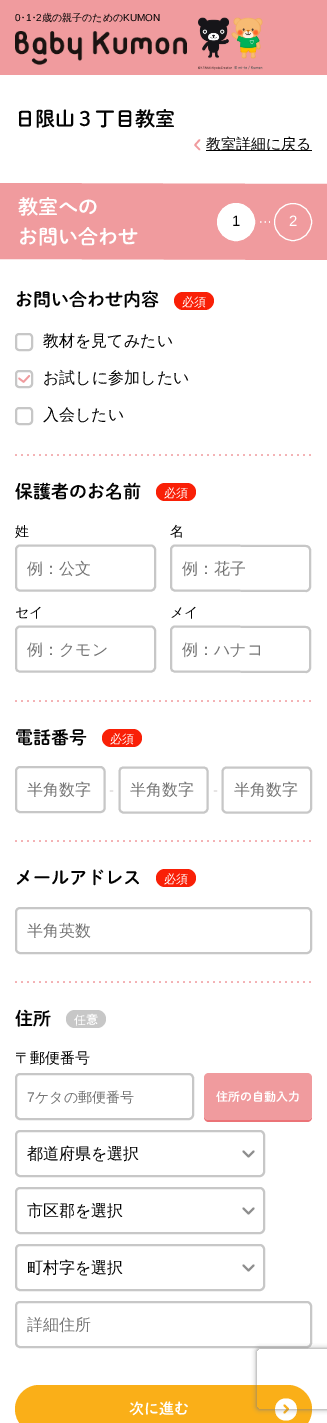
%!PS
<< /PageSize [327 1423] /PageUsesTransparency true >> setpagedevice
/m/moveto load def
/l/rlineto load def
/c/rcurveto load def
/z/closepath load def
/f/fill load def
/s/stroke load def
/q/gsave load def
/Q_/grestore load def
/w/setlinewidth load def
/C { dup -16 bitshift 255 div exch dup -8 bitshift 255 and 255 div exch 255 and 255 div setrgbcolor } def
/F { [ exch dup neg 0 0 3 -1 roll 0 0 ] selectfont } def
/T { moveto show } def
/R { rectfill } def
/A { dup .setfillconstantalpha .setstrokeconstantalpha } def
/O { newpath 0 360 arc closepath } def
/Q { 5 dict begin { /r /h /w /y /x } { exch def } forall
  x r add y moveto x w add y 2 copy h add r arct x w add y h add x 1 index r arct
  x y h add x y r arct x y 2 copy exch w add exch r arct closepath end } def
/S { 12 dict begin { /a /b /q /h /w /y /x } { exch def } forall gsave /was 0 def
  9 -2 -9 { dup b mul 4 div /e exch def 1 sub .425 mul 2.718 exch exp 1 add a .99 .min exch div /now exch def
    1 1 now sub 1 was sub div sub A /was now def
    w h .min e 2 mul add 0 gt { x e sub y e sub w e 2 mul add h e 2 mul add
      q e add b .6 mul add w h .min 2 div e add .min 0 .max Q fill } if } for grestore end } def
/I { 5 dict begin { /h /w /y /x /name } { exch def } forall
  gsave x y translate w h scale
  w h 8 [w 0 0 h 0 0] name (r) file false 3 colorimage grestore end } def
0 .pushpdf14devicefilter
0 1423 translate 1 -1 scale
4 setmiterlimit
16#FFFFFF C
0 0 327 1423 R
16#F09B9E C
0 0 327 75 R
/LiberationSans-Regular 10 F
16#030303 C
15 21 m -2 0 (0) ashow
/WenQuanYiZenHei-Medium 10 F
18 21 m -2 0 (・) ashow
/LiberationSans-Regular 10 F
26 21 m -2 0 (1) ashow
/WenQuanYiZenHei-Medium 10 F
29 21 m -2 0 (・) ashow
/LiberationSans-Regular 10 F
(2) 36 21 T
/WenQuanYiZenHei-Medium 10 F
(歳の親子のための) 42 21 T
/LiberationSans-Regular 10 F
(KUMON) 123 21 T
(1.rgb) 15 31 172 34 I
(2.rgb) 198 17 65 53 I
/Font-SemiBold 20 F
(日限山３丁目教室) 15 126 T
16#F09B9E C
1.7 w
1 setlinecap
1 setlinejoin
199.5 149.5 m -4.5 -4.5 l 4.5 -5 l s
16#030303 C
206 150 106 1 R
/WenQuanYiZenHei-Medium 15 F
(教室詳細に戻る) 206 149 T
16#F09B9E C
0 183 m 327 1 l 0 76 l -327 -1 l z f
/Font-SemiBold 20 F
16#FFFFFF C
(教室への) 18 214 T
(お問い合わせ) 18 244 T
236 222 18.5 O q f Q_
1 w
0 setlinecap
0 setlinejoin
s
/LiberationSans-Regular 15 F
16#030303 C
(1) 232 226 T
(3.rgb) 260 221 10 2 I
16#FFFFFF C
293 222 18.5 O s
(2) 289 226 T
/Font-SemiBold 18 F
16#030303 C
(お問い合わせ内容) 15 306 T
16#F92007 C
183 292 m 22 0 l 5 0 9 4 9 9 c 0 4 -4 9 -9 9 c -22 0 l -5 0 -9 -5 -9 -9 c 0 -5 4 -9 9 -9 c z f
/WenQuanYiZenHei-Medium 12 F
16#FFFFFF C
(必須) 182 306 T
16#C7C7C7 C
2 w
19 334 m 10 0 l 1.5 0 3 1.5 3 3 c 0 10 l 0 1.5 -1.5 3 -3 3 c -10 0 l -1.5 0 -3 -1.5 -3 -3 c 0 -10 l 0 -1.5 1.5 -3 3 -3 c z s
/WenQuanYiZenHei-Medium 16 F
16#030303 C
(教材を見てみたい) 43 346 T
16#C7C7C7 C
19 371 m 10 0 l 1.5 0 3 1.5 3 3 c 0 10 l 0 1.5 -1.5 3 -3 3 c -10 0 l -1.5 0 -3 -1.5 -3 -3 c 0 -10 l 0 -1.5 1.5 -3 3 -3 c z s
16#030303 C
(お試しに参加したい) 43 383 T
(4.rgb) 18 375 13 8 I
16#C7C7C7 C
19 408 m 10 0 l 1.5 0 3 1.5 3 3 c 0 10 l 0 1.5 -1.5 3 -3 3 c -10 0 l -1.5 0 -3 -1.5 -3 -3 c 0 -10 l 0 -1.5 1.5 -3 3 -3 c z s
16#030303 C
(入会したい) 43 420 T
(5.rgb) 15 454 296 2 I
/Font-SemiBold 18 F
(保護者のお名前) 15 498 T
16#F92007 C
165 483 m 22 0 l 5 0 9 4 9 9 c 0 5 -4 9 -9 9 c -22 0 l -5 0 -9 -4 -9 -9 c 0 -5 4 -9 9 -9 c z f
/WenQuanYiZenHei-Medium 12 F
16#FFFFFF C
(必須) 164 497 T
/WenQuanYiZenHei-Medium 14 F
16#030303 C
(姓) 15 536 T
16#C7C7C7 C
20 545.5 m 131 0 l 2 0 4 2 4 4 c 0 37 l 0 2.5 -2 4 -4 4 c -131 0 l -2 0 -4 -1.5 -4 -4 c 0 -37 l 0 -2 2 -4 4 -4 c z s
/WenQuanYiZenHei-Medium 16 F
16#757575 C
(例：公文) 27 574 T
/WenQuanYiZenHei-Medium 14 F
16#030303 C
(名) 170 536 T
16#C7C7C7 C
175 545.5 m 131 .5 l 2 0 4 1.5 4 4 c 0 37 l 0 2 -2 4 -4 4 c -131 -.5 l -2 0 -4 -1.5 -4 -4 c 0 -37 l 0 -2 2 -4 4 -4 c z s
/WenQuanYiZenHei-Medium 16 F
16#757575 C
(例：花子) 182 574 T
/WenQuanYiZenHei-Medium 14 F
16#030303 C
(セイ) 15 617 T
16#C7C7C7 C
20 626.5 m 131 0 l 2 0 4 2 4 4 c 0 37 l 0 2.5 -2 4 -4 4 c -131 0 l -2.5 0 -4 -1.5 -4 -4 c 0 -37 l 0 -2 2 -4 4 -4 c z s
/WenQuanYiZenHei-Medium 16 F
16#757575 C
(例：クモン) 27 655 T
/WenQuanYiZenHei-Medium 14 F
16#030303 C
(メイ) 170 617 T
16#C7C7C7 C
175 626.5 m 131 .5 l 2 0 4 1.5 4 4 c 0 37 l 0 2 -2 4 -4 4 c -131 -.5 l -2.5 0 -4 -1.5 -4 -4 c 0 -37 l 0 -2 2 -4 4 -4 c z s
/WenQuanYiZenHei-Medium 16 F
16#757575 C
(例：ハナコ) 182 655 T
(5.rgb) 15 700 296 2 I
/Font-SemiBold 18 F
16#030303 C
(電話番号) 15 744 T
16#F92007 C
111 729 m 22 0 l 5 0 9 4 9 9 c 0 5 -4 9 -9 9 c -22 0 l -5 0 -9 -4 -9 -9 c 0 -5 4 -9 9 -9 c z f
/WenQuanYiZenHei-Medium 12 F
16#FFFFFF C
(必須) 110 743 T
16#C7C7C7 C
20 767 m 80.5 0 l 2 0 4 2 4 4.5 c 0 37 l 0 2 -2 3.5 -4 3.5 c -80.5 0 l -2 0 -4 -1.5 -4 -4 c 0 -37 l 0 -2 2 -4 4 -4 c z s
/WenQuanYiZenHei-Medium 16 F
16#757575 C
(半角数字) 27 795 T
/LiberationSans-Regular 15 F
16#D1CCCC C
(-) 109 795 T
16#C7C7C7 C
123.5 767.5 m 80 0 l 2.5 0 4 1.5 4 4 c 0 37 l 0 2 -1.5 4 -4 4 c -80 0 l -2.5 0 -4 -2 -4 -4 c 0 -37 l 0 -2.5 1.5 -4 4 -4 c z s
/WenQuanYiZenHei-Medium 16 F
16#757575 C
(半角数字) 130 795 T
/LiberationSans-Regular 15 F
16#D1CCCC C
(-) 213 795 T
16#C7C7C7 C
226.5 767.5 m 80.5 0 l 2 0 4 1.5 4 4 c 0 37 l 0 2 -2 4 -4 4 c -80.5 0 l -2 0 -4 -2 -4 -4 c 0 -37 l 0 -2.5 2 -4 4 -4 c z s
/WenQuanYiZenHei-Medium 16 F
16#757575 C
(半角数字) 234 795 T
(5.rgb) 15 840 296 2 I
/Font-SemiBold 18 F
16#030303 C
(メールアドレス) 15 884 T
16#F92007 C
165 869 m 22 0 l 5 0 9 4 9 9 c 0 5 -4 9 -9 9 c -22 0 l -5 0 -9 -4 -9 -9 c 0 -5 4 -9 9 -9 c z f
/WenQuanYiZenHei-Medium 12 F
16#FFFFFF C
(必須) 164 883 T
16#C7C7C7 C
20 908 m 287 0 l 2 0 4 1.5 4 4 c 0 37 l 0 2 -2 4 -4 4 c -287 0 l -2 0 -4 -2 -4 -4 c 0 -37 l 0 -2.5 2 -4 4 -4 c z s
/WenQuanYiZenHei-Medium 16 F
16#757575 C
(半角英数) 27 936 T
(5.rgb) 15 981 296 2 I
/Font-SemiBold 18 F
16#030303 C
(住所) 15 1025 T
16#C7C7C7 C
75 1010 m 22 0 l 5 0 9 4 9 9 c 0 5 -4 9 -9 9 c -22 0 l -5 0 -9 -4 -9 -9 c 0 -5 4 -9 9 -9 c z f
(6.rgb) 86 1013 12 12 I
/WenQuanYiZenHei-Medium 12 F
16#FFFFFF C
(任) 74 1024 T
/WenQuanYiZenHei-Medium 15 F
16#030303 C
(〒郵便番号) 15 1063 T
16#C7C7C7 C
20 1074 m 169 0 l 2.5 0 4 2 4 4 c 0 37 l 0 2 -2 4 -4 4 c -169 0 l -2 0 -4 -2 -4 -4 c 0 -37 l 0 -2.5 2 -4 4 -4 c z s
/LiberationSans-Regular 14 F
16#757575 C
(7) 27 1102 T
/WenQuanYiZenHei-Medium 14 F
(ケタの郵便番号) 35 1102 T
16#EB7377 C
204 1079 m 0 38 l 0 3 2 5 5 5 c 98 0 l 3 0 5 -2 5 -5 c 0 -1 l 0 2 -2 4 -5 4 c -98 0 l -3 0 -5 -2 -5 -5 c z f
16#F09B9E C
209 1073 m 98 0 l 3 0 5 2 5 5 c 0 37 l 0 3 -2 5 -5 5 c -98 0 l -3 0 -5 -2 -5 -5 c 0 -37 l 0 -3 2 -5 5 -5 c z f
/Font-SemiBold 12 F
16#FFFFFF C
q 216 1101 translate .1 rotate 0 0 m (住所の自動入力) show Q_
16#C7C7C7 C
20 1131 m 240 0 l 2 0 4 2 4 4 c 0 37 l 0 2 -2 4 -4 4 c -240 0 l -2 0 -4 -2 -4 -4 c 0 -37 l 0 -2.5 2 -4 4 -4 c z s
/WenQuanYiZenHei-Medium 16 F
16#030303 C
(都道府県を選択) 27 1159 T
q
242 1150.5 m 13 0 l 0 7.5 l -13 0 l z clip newpath
16#8D8D8D C
1 setlinecap
1 setlinejoin
253.5 1151.5 m -5 5 l -5 -5 l s
Q_
16#C7C7C7 C
20 1188 m 240 0 l 2 0 4 2 4 4 c 0 37 l 0 2 -2 4 -4 4 c -240 0 l -2 0 -4 -2 -4 -4 c 0 -37 l 0 -2.5 2 -4 4 -4 c z s
16#030303 C
(市区郡を選択) 27 1216 T
q
242 1207.5 m 13 0 l 0 7.5 l -13 0 l z clip newpath
16#8D8D8D C
1 setlinecap
1 setlinejoin
253.5 1208.5 m -5 5 l -5 -5 l s
Q_
16#C7C7C7 C
20 1245 m 240 0 l 2 0 4 2 4 4 c 0 37 l 0 2 -2 4 -4 4 c -240 0 l -2.5 0 -4 -2 -4 -4 c 0 -37 l 0 -2.5 2 -4 4 -4 c z s
16#030303 C
(町村字を選択) 27 1273 T
q
242 1264.5 m 13 0 l 0 7.5 l -13 0 l z clip newpath
16#8D8D8D C
1 setlinecap
1 setlinejoin
253.5 1265.5 m -5 5 l -5 -5 l s
Q_
16#C7C7C7 C
20 1302 m 287 0 l 2 0 4 2 4 4 c 0 37 l 0 2.5 -2 4 -4 4 c -287 0 l -2.5 0 -4 -2 -4 -4 c 0 -37 l 0 -2.5 1.5 -4 4 -4 c z s
16#757575 C
(詳細住所) 27 1330 T
16#FAAF18 C
39 1385 m 249 0 l 13 0 24 11 24 24 c 0 14 -11 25 -24 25 c -249 -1 l -13 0 -24 -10 -24 -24 c 0 -13 11 -24 24 -24 c z f
/Font-SemiBold 15 F
16#FFFFFF C
(次に進む) 129 1414 T
286 1398.5 m 14.5 0 14.5 22 0 22 c -14.5 0 -14.5 -22 0 -22 c z f
16#FAAF18 C
1 setlinecap
1 setlinejoin
284.5 1412.5 m 3.5 -3.5 l -3.5 -3.5 l s
q
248 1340 m 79 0 l 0 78 l -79 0 l z 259 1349 m 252 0 l 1 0 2 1 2 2 c 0 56 l 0 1 -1 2 -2 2 c -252 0 l -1 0 -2 -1 -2 -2 c 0 -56 l 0 -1 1 -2 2 -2 c z eoclip newpath
16#808080 C
257 1349 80 60 2 2.5 1 S
Q_
.poppdf14devicefilter showpage
